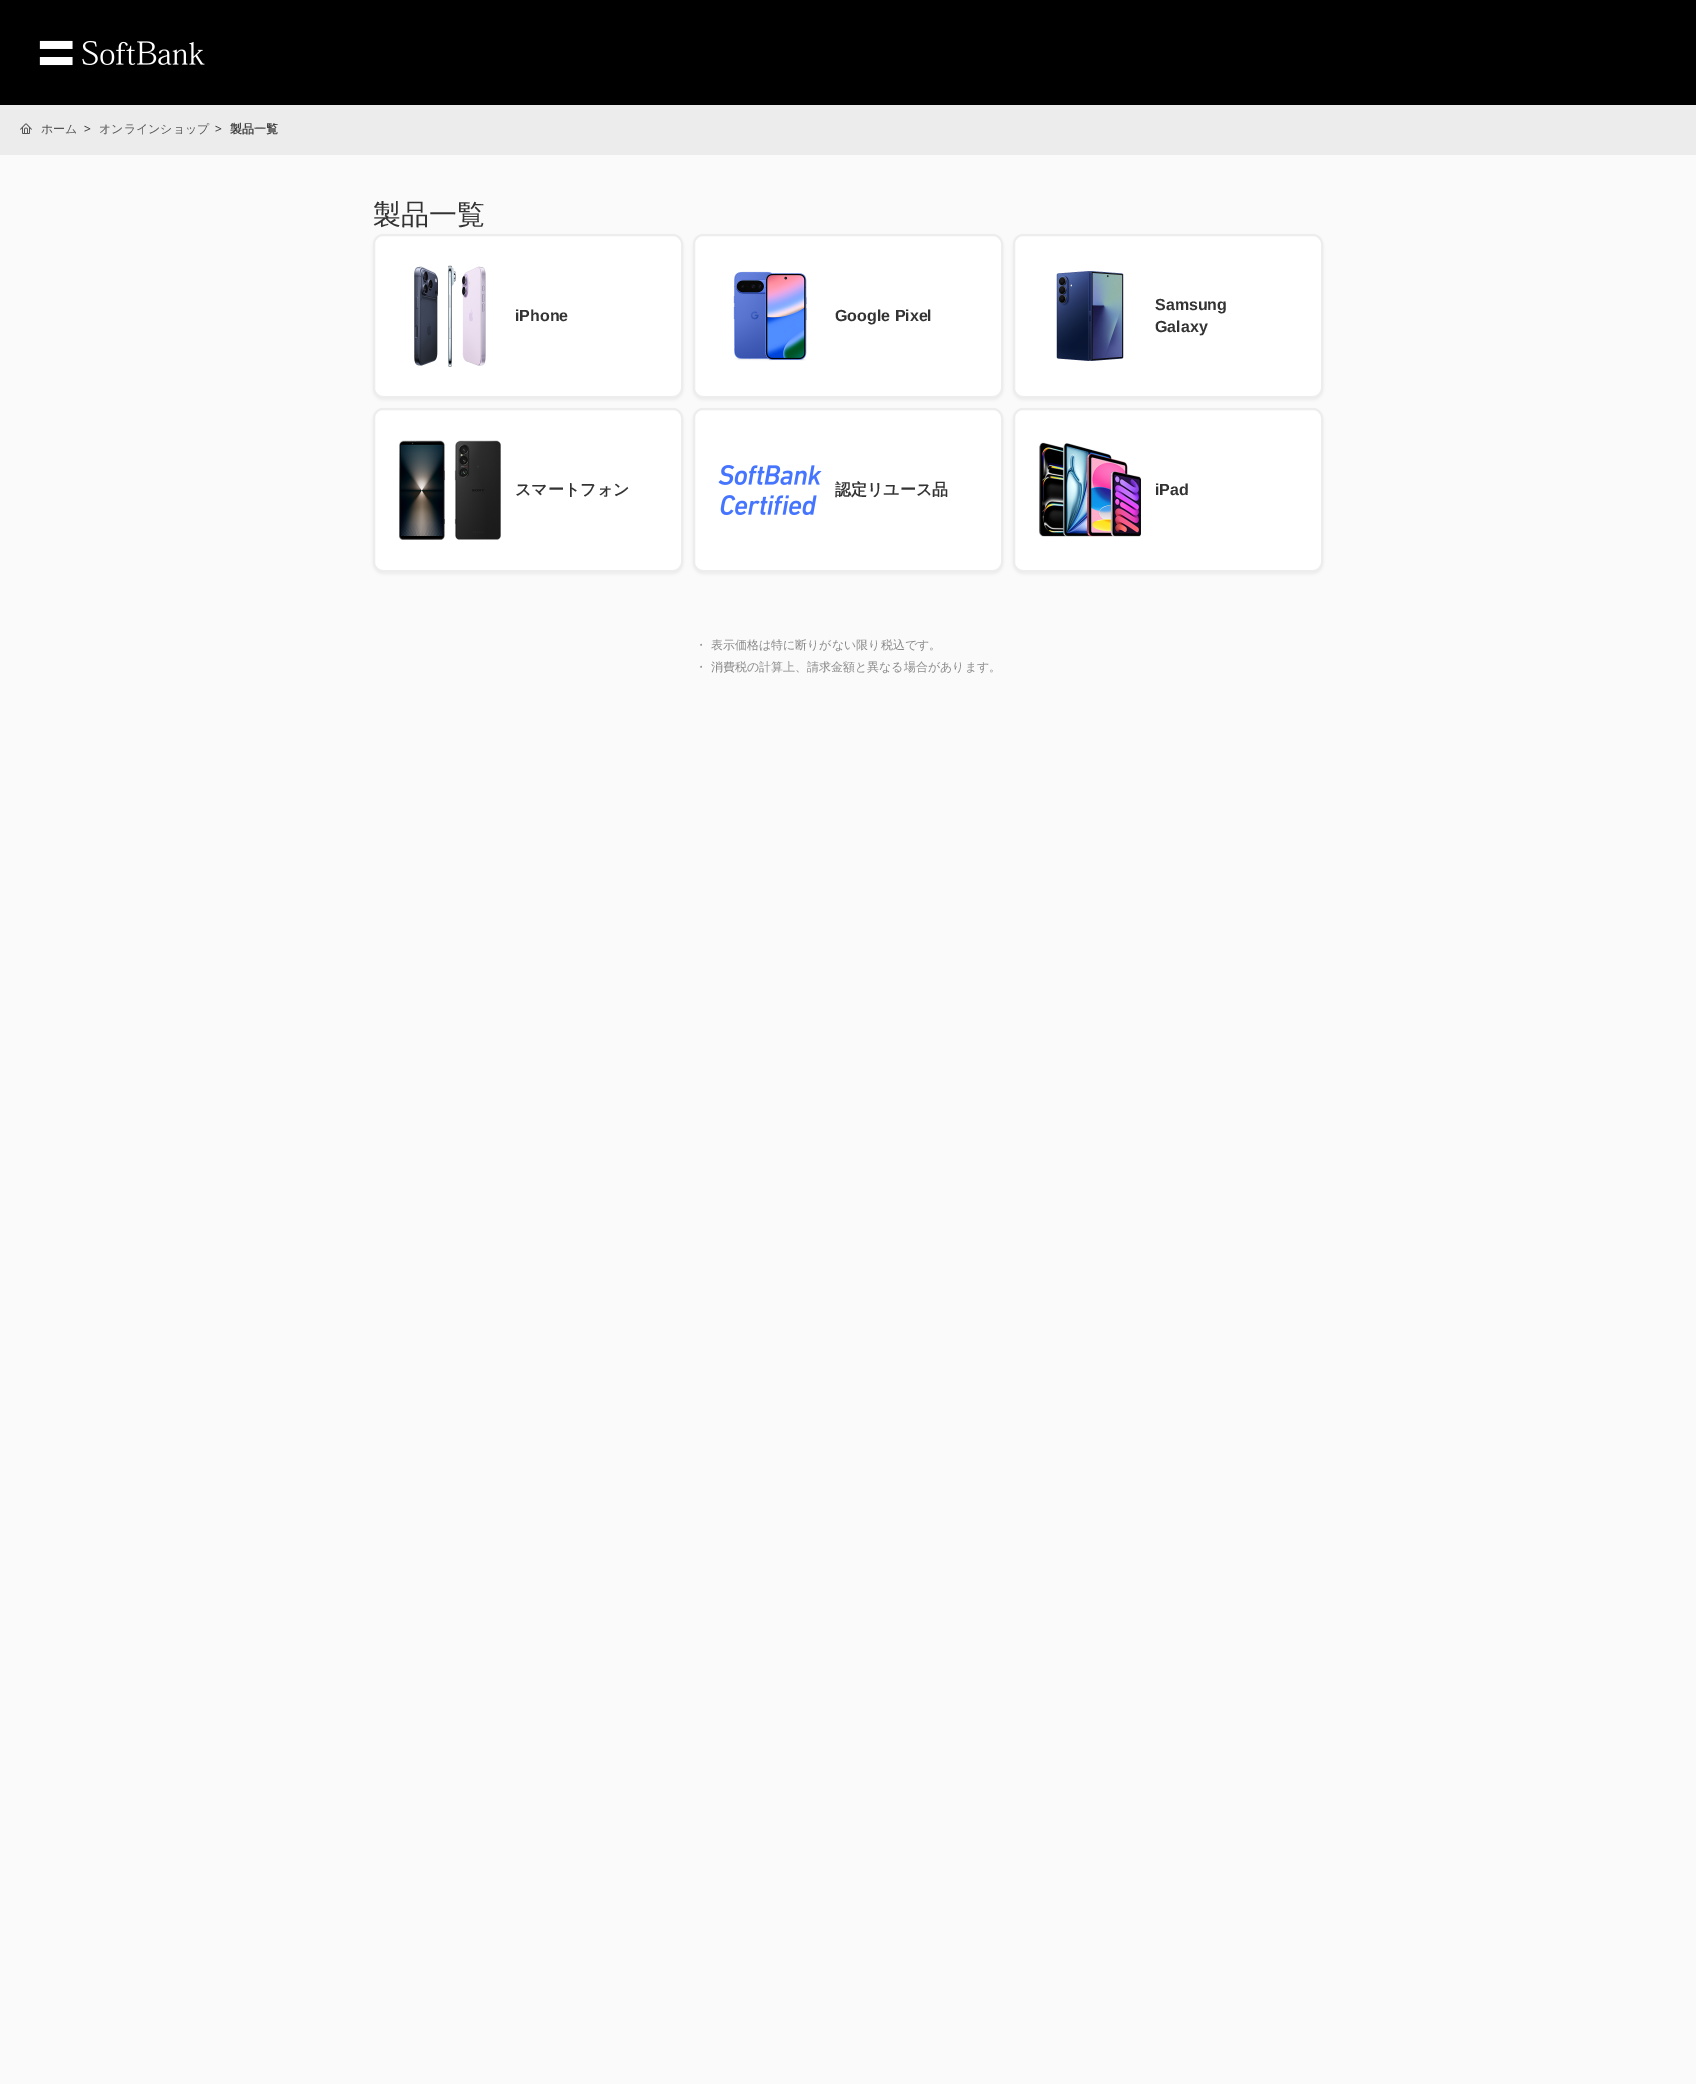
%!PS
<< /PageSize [1696 2084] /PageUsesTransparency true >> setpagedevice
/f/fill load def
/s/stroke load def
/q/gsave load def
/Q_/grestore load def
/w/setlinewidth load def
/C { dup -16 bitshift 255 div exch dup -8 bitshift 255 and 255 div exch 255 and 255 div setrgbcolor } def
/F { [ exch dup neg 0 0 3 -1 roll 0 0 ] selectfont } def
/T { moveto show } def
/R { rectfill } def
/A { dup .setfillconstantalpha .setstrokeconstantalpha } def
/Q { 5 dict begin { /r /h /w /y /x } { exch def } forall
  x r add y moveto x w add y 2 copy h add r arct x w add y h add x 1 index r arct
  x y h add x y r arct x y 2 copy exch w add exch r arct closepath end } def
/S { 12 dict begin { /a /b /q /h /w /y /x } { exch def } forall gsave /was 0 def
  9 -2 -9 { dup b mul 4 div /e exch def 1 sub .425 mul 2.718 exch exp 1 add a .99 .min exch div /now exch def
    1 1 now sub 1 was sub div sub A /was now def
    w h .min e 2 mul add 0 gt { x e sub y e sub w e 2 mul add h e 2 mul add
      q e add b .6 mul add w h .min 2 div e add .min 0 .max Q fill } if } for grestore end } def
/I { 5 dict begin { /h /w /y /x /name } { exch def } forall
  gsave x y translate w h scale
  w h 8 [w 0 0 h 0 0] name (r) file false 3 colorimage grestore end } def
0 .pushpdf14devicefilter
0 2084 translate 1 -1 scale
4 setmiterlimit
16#ECECEC C
0 0 1696 2084 R
16#000000 C
0 0 1696 105 R
(1.rgb) 39 40 166 26 I
(2.rgb) 20 123 12 11 I
/WenQuanYiZenHei-Medium 12 F
16#555555 C
(ホーム) 41 133 T
/NotoSans-Regular 12 F
16#333333 C
(>) 84 133 T
/WenQuanYiZenHei-Medium 12 F
16#555555 C
(オンラインショップ) 99 133 T
/NotoSans-Regular 12 F
16#333333 C
(>) 215 133 T
/WenQuanYiZenHei-Bold 12 F
16#424242 C
(製品一覧) 230 133 T
16#FAFAFA C
0 155 1696 1929 R
/WenQuanYiZenHei-Medium 28 F
16#333333 C
(製品一覧) 373 224 T
16#000000 C
373 236 310 164 10 1.5 .06 S
16#FFFFFF C
374 235 308 162 9 Q q f Q_
16#EDEDED C
2 w
s
(3.rgb) 414 265 72 102 I
/LiberationSans-Bold 16 F
16#333333 C
(iPhone) 515 321 T
16#000000 C
693 236 310 164 10 1.5 .06 S
16#FFFFFF C
694 235 308 162 9 Q q f Q_
16#EDEDED C
s
(4.rgb) 733 271 74 90 I
16#333333 C
(Google Pixel) 835 321 T
16#000000 C
1013 236 310 164 10 1.5 .06 S
16#FFFFFF C
1014 235 308 162 9 Q q f Q_
16#EDEDED C
s
(5.rgb) 1056 271 68 90 I
16#333333 C
(Samsung) 1155 310 T
(Galaxy) 1155 332 T
16#000000 C
373 410 310 164 10 1.5 .06 S
16#FFFFFF C
374 409 308 162 9 Q q f Q_
16#EDEDED C
s
(6.rgb) 399 440 102 100 I
/WenQuanYiZenHei-Bold 16 F
16#333333 C
(スマートフォン) 515 495 T
16#000000 C
693 410 310 164 10 1.5 .06 S
16#FFFFFF C
694 409 308 162 9 Q q f Q_
16#EDEDED C
s
(7.rgb) 718 465 104 50 I
16#333333 C
(認定リユース品) 835 495 T
16#000000 C
1013 410 310 164 10 1.5 .06 S
16#FFFFFF C
1014 409 308 162 9 Q q f Q_
16#EDEDED C
s
(8.rgb) 1039 442 102 95 I
/LiberationSans-Bold 16 F
16#333333 C
(iPad) 1155 495 T
/WenQuanYiZenHei-Medium 12 F
16#888888 C
(・ 表示価格は特に断りがない限り税込です。) 695 649 T
(・ 消費税の計算上、請求金額と異なる場合があります。) 695 671 T
.poppdf14devicefilter showpage
